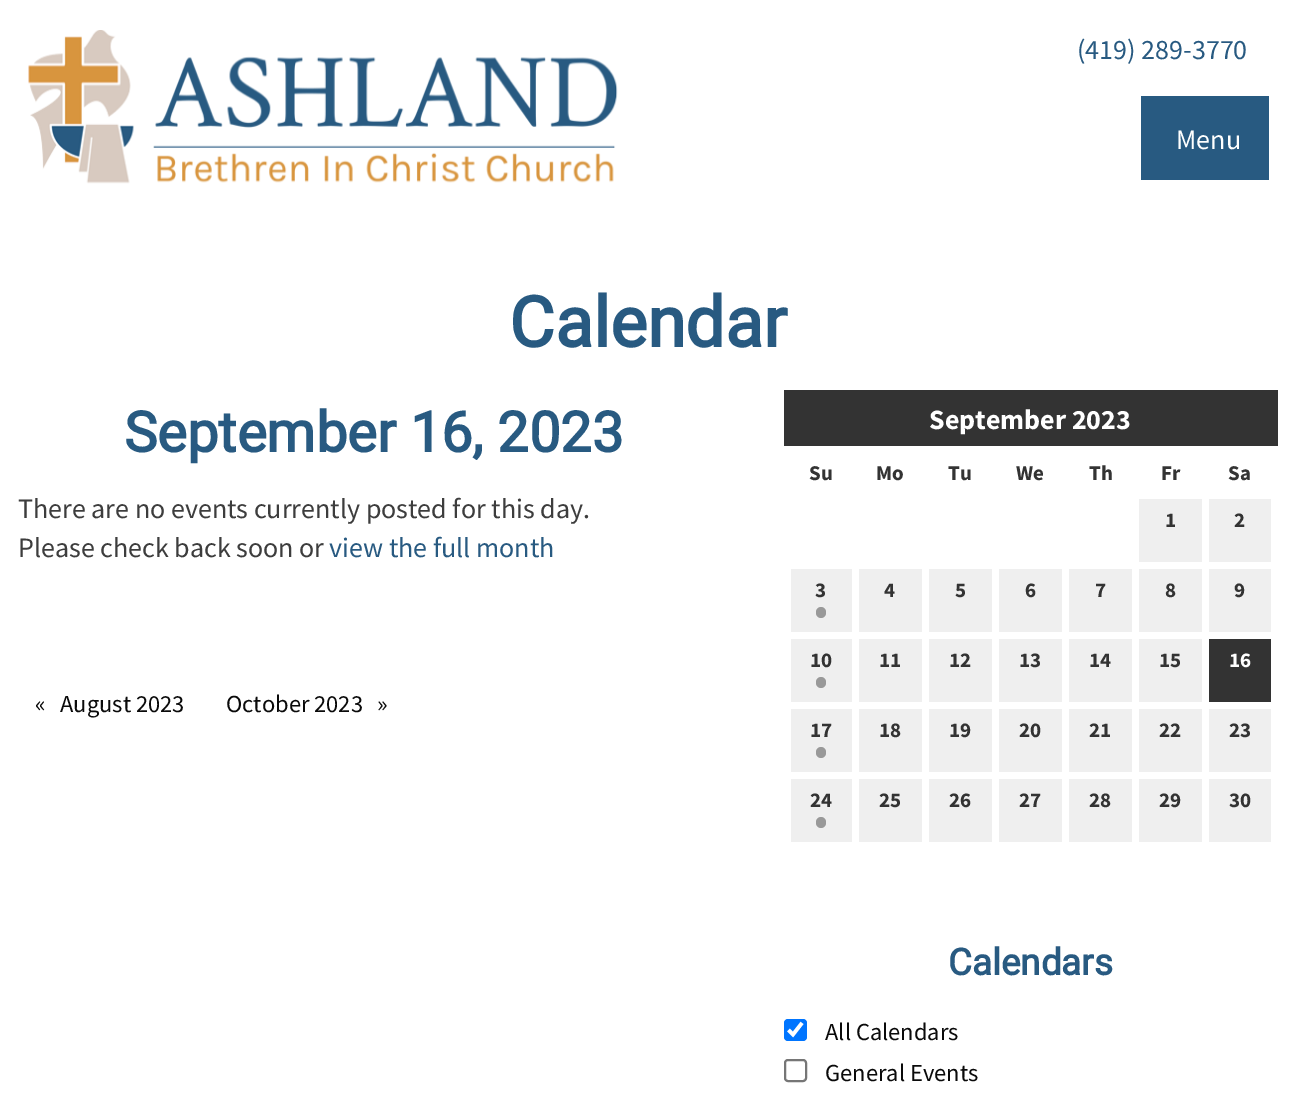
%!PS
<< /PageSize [1294 1093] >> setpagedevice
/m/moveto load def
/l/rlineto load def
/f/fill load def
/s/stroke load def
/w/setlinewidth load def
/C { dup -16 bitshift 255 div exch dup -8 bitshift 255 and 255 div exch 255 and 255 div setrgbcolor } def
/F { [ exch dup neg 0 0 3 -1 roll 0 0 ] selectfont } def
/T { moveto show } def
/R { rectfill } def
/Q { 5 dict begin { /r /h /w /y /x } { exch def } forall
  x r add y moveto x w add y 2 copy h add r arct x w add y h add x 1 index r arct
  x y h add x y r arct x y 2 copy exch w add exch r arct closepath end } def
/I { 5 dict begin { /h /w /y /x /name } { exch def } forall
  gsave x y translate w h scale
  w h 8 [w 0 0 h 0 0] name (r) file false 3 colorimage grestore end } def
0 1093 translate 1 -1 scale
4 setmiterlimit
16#FFFFFF C
0 0 1294 1093 R
(1.rgb) 28 30 590 154 I
/SourceSansPro-Regular 28 F
16#285A81 C
(\(419\) 289-3770) 1077 59 T
1141 96 128 84 R
16#FFFFFF C
(Menu) 1176 149 T
/Roboto-Bold 70 F
16#285A81 C
(Calendar) 509 347 T
/Roboto-Bold 56 F
(September 16, 2023) 124 452 T
/SourceSansPro-Regular 28 F
16#3D3D3D C
(There are no events currently posted for this day.) 18 518 T
(Please check back soon or) 18 557 T
16#285A81 C
(view the full month) 329 557 T
/SourceSansPro-Regular 24.5 F
16#0A0A0A C
(«) 35 712 T
(August 2023) 60 712 T
(October 2023) 226 712 T
(») 377 712 T
16#333333 C
784 390 494 56 R
/SourceSansPro-Bold 28 F
16#FFFFFF C
(September 2023) 929 429 T
/SourceSansPro-Bold 21 F
16#333333 C
(Su) 809 480 T
(Mo) 876 480 T
(Tu) 948 480 T
(We) 1016 480 T
(Th) 1089 480 T
(Fr) 1161 480 T
(Sa) 1228 480 T
16#EFEFEF C
1139 499 63 63 R
16#333333 C
(1) 1165 527 T
16#EFEFEF C
1209 499 62 63 R
16#333333 C
(2) 1234 527 T
16#EFEFEF C
791 569 61 63 R
16#333333 C
(3) 815 597 T
16#999999 C
816 607 10 11 5 Q f
16#EFEFEF C
859 569 63 63 R
16#333333 C
(4) 884 597 T
16#EFEFEF C
929 569 63 63 R
16#333333 C
(5) 955 597 T
16#EFEFEF C
999 569 63 63 R
16#333333 C
(6) 1025 597 T
16#EFEFEF C
1069 569 63 63 R
16#333333 C
(7) 1095 597 T
16#EFEFEF C
1139 569 63 63 R
16#333333 C
(8) 1165 597 T
16#EFEFEF C
1209 569 62 63 R
16#333333 C
(9) 1234 597 T
16#EFEFEF C
791 639 61 63 R
16#333333 C
(10) 810 667 T
16#999999 C
816 677 10 11 5 Q f
16#EFEFEF C
859 639 63 63 R
16#333333 C
(11) 879 667 T
16#EFEFEF C
929 639 63 63 R
16#333333 C
(12) 949 667 T
16#EFEFEF C
999 639 63 63 R
16#333333 C
(13) 1019 667 T
16#EFEFEF C
1069 639 63 63 R
16#333333 C
(14) 1089 667 T
16#EFEFEF C
1139 639 63 63 R
16#333333 C
(15) 1159 667 T
1209 639 62 63 R
16#FFFFFF C
(16) 1229 667 T
16#EFEFEF C
791 709 61 63 R
16#333333 C
(17) 810 737 T
16#999999 C
816 747 10 11 5 Q f
16#EFEFEF C
859 709 63 63 R
16#333333 C
(18) 879 737 T
16#EFEFEF C
929 709 63 63 R
16#333333 C
(19) 949 737 T
16#EFEFEF C
999 709 63 63 R
16#333333 C
(20) 1019 737 T
16#EFEFEF C
1069 709 63 63 R
16#333333 C
(21) 1089 737 T
16#EFEFEF C
1139 709 63 63 R
16#333333 C
(22) 1159 737 T
16#EFEFEF C
1209 709 62 63 R
16#333333 C
(23) 1229 737 T
16#EFEFEF C
791 779 61 63 R
16#333333 C
(24) 810 807 T
16#999999 C
816 817 10 11 5 Q f
16#EFEFEF C
859 779 63 63 R
16#333333 C
(25) 879 807 T
16#EFEFEF C
929 779 63 63 R
16#333333 C
(26) 949 807 T
16#EFEFEF C
999 779 63 63 R
16#333333 C
(27) 1019 807 T
16#EFEFEF C
1069 779 63 63 R
16#333333 C
(28) 1089 807 T
16#EFEFEF C
1139 779 63 63 R
16#333333 C
(29) 1159 807 T
16#EFEFEF C
1209 779 62 63 R
16#333333 C
(30) 1229 807 T
/Roboto-Bold 36.75 F
16#285A81 C
(Calendars) 948 975 T
16#0075FF C
784 1019 23 22 4 Q f
16#FFFFFF C
3.6 w
788.5 1030 m 4.5 4.5 l 9 -11.5 l s
/SourceSansPro-Regular 24.5 F
16#0A0A0A C
(All Calendars) 825 1040 T
16#767676 C
2 w
785 1060 21 21 3 Q s
16#0A0A0A C
(General Events) 825 1081 T
showpage
